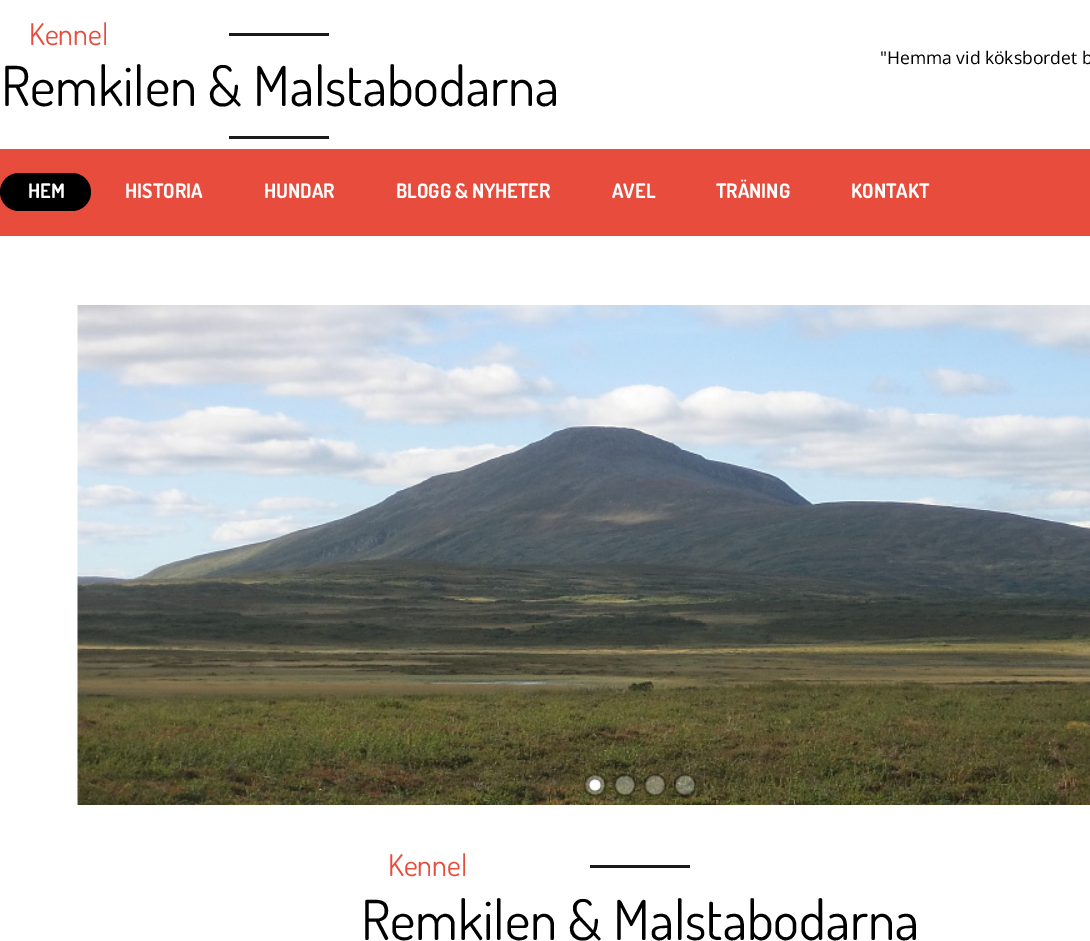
%!PS
<< /PageSize [1090 941] >> setpagedevice
/f/fill load def
/C { dup -16 bitshift 255 div exch dup -8 bitshift 255 and 255 div exch 255 and 255 div setrgbcolor } def
/F { [ exch dup neg 0 0 3 -1 roll 0 0 ] selectfont } def
/T { moveto show } def
/R { rectfill } def
/Q { 5 dict begin { /r /h /w /y /x } { exch def } forall
  x r add y moveto x w add y 2 copy h add r arct x w add y h add x 1 index r arct
  x y h add x y r arct x y 2 copy exch w add exch r arct closepath end } def
/I { 5 dict begin { /h /w /y /x /name } { exch def } forall
  gsave x y translate w h scale
  w h 8 [w 0 0 h 0 0] name (r) file false 3 colorimage grestore end } def
0 941 translate 1 -1 scale
4 setmiterlimit
16#FFFFFF C
0 0 1090 941 R
/Dosis-Regular 30 F
16#E74C3C C
(Kennel) 29 45 T
16#1A1A1A C
229 33 100 3 R
/Dosis-Regular 55 F
16#000000 C
(Remkilen & Malstabodarna) 1 106 T
/OpenSans-Regular 17.5 F
("Hemma vid köksbordet b) 880 64 T
16#1A1A1A C
229 136 100 3 R
16#E74C3C C
0 149 1090 87 R
16#000000 C
0 173 91 38 19 Q f
/Dosis-Bold 20 F
16#FFFFFF C
(HEM) 28 198 T
(HISTORIA) 125 198 T
(HUNDAR) 264 198 T
(BLOGG & NYHETER) 396 198 T
(AVEL) 612 198 T
(TRÄNING) 716 198 T
(KONTAKT) 851 198 T
(1.rgb) 77 305 1013 500 I
(2.rgb) 582 772 26 26 I
(3.rgb) 612 772 26 26 I
(4.rgb) 642 772 26 26 I
(5.rgb) 672 772 26 25 I
/Dosis-Regular 30 F
16#E74C3C C
(Kennel) 388 876 T
16#1A1A1A C
590 865 100 3 R
/Dosis-Regular 55 F
16#000000 C
(Remkilen & Malstabodarna) 361 940 T
showpage
